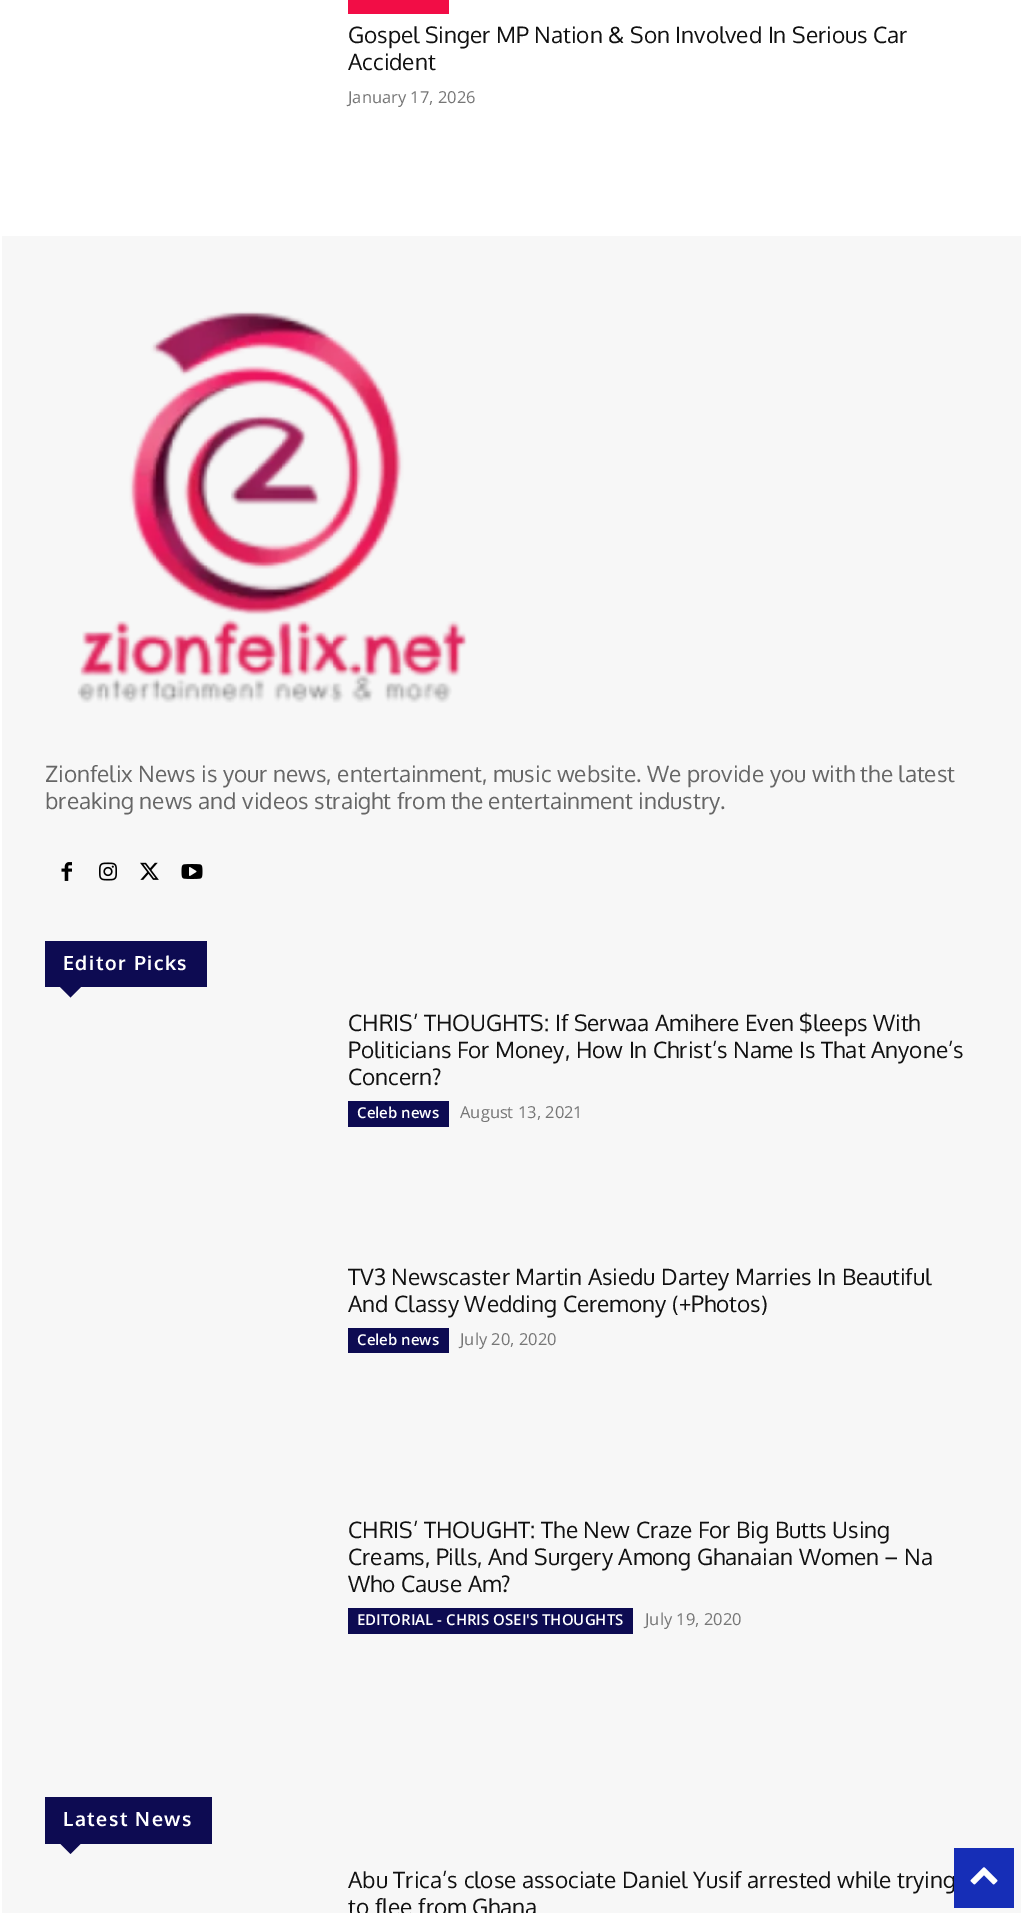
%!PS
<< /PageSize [1021 1913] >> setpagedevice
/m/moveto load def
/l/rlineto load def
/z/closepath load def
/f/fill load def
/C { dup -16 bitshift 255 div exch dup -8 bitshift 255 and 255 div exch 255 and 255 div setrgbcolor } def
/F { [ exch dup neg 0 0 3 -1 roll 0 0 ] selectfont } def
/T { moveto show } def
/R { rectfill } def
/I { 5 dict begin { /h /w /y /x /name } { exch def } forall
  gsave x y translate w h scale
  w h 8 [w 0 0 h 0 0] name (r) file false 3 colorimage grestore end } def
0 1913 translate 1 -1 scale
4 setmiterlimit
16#FFFFFF C
0 0 1021 1913 R
16#F20D46 C
348 0 101 14 R
/Oxygen-Regular 22.5 F
16#111111 C
(Gospel Singer MP Nation & Son Involved In Serious Car) 348 43 T
(Accident) 348 70 T
/OpenSans-Regular 16.5 F
16#767676 C
(January 17, 2026) 348 103 T
16#F7F7F7 C
2 236 1019 1677 R
(1.rgb) 77 311 390 392 I
/Oxygen-Regular 22.5 F
16#666666 C
(Zionfelix News is your news, entertainment, music website. We provide you with the latest) 45 782 T
(breaking news and videos straight from the entertainment industry.) 45 809 T
(2.rgb) 61 862 11 19 I
(3.rgb) 99 862 18 19 I
(4.rgb) 140 862 19 18 I
(5.rgb) 181 864 22 15 I
16#0D0B52 C
45 941 162 46 R
/Oxygen-Bold 19.5 F
16#FFFFFF C
63 970 m 1.5 0 (Editor Picks) ashow
16#0D0B52 C
60 987 m 21 0 l -10.5 10.5 l z f
/Oxygen-Regular 22.5 F
16#111111 C
(CHRIS’ THOUGHTS: If Serwaa Amihere Even $leeps With) 348 1031 T
(Politicians For Money, How In Christ’s Name Is That Anyone’s) 348 1058 T
(Concern?) 348 1085 T
16#0D0B52 C
348 1101 101 26 R
/OpenSans-SemiBold 15 F
16#FFFFFF C
(Celeb news) 357 1118 T
/OpenSans-Regular 16.5 F
16#767676 C
(August 13, 2021) 460 1118 T
/Oxygen-Regular 22.5 F
16#111111 C
(TV3 Newscaster Martin Asiedu Dartey Marries In Beautiful) 348 1285 T
(And Classy Wedding Ceremony \(+Photos\)) 348 1312 T
16#0D0B52 C
348 1328 101 25 R
/OpenSans-SemiBold 15 F
16#FFFFFF C
(Celeb news) 357 1345 T
/OpenSans-Regular 16.5 F
16#767676 C
(July 20, 2020) 460 1345 T
/Oxygen-Regular 22.5 F
16#111111 C
(CHRIS’ THOUGHT: The New Craze For Big Butts Using) 348 1538 T
(Creams, Pills, And Surgery Among Ghanaian Women – Na) 348 1565 T
(Who Cause Am?) 348 1592 T
16#0D0B52 C
348 1608 285 26 R
/OpenSans-SemiBold 15 F
16#FFFFFF C
(EDITORIAL - CHRIS OSEI'S THOUGHTS) 357 1625 T
/OpenSans-Regular 16.5 F
16#767676 C
(July 19, 2020) 645 1625 T
16#0D0B52 C
45 1797 167 47 R
/Oxygen-Bold 19.5 F
16#FFFFFF C
63 1826 m 1.5 0 (Latest News) ashow
16#0D0B52 C
60 1843.5 m 21 0 l -10.5 10.5 l z f
/Oxygen-Regular 22.5 F
16#111111 C
(Abu Trica’s close associate Daniel Yusif arrested while trying) 348 1888 T
(to flee from Ghana) 348 1915 T
16#162EB7 C
954 1848 60 60 R
(6.rgb) 970 1867 28 18 I
showpage
